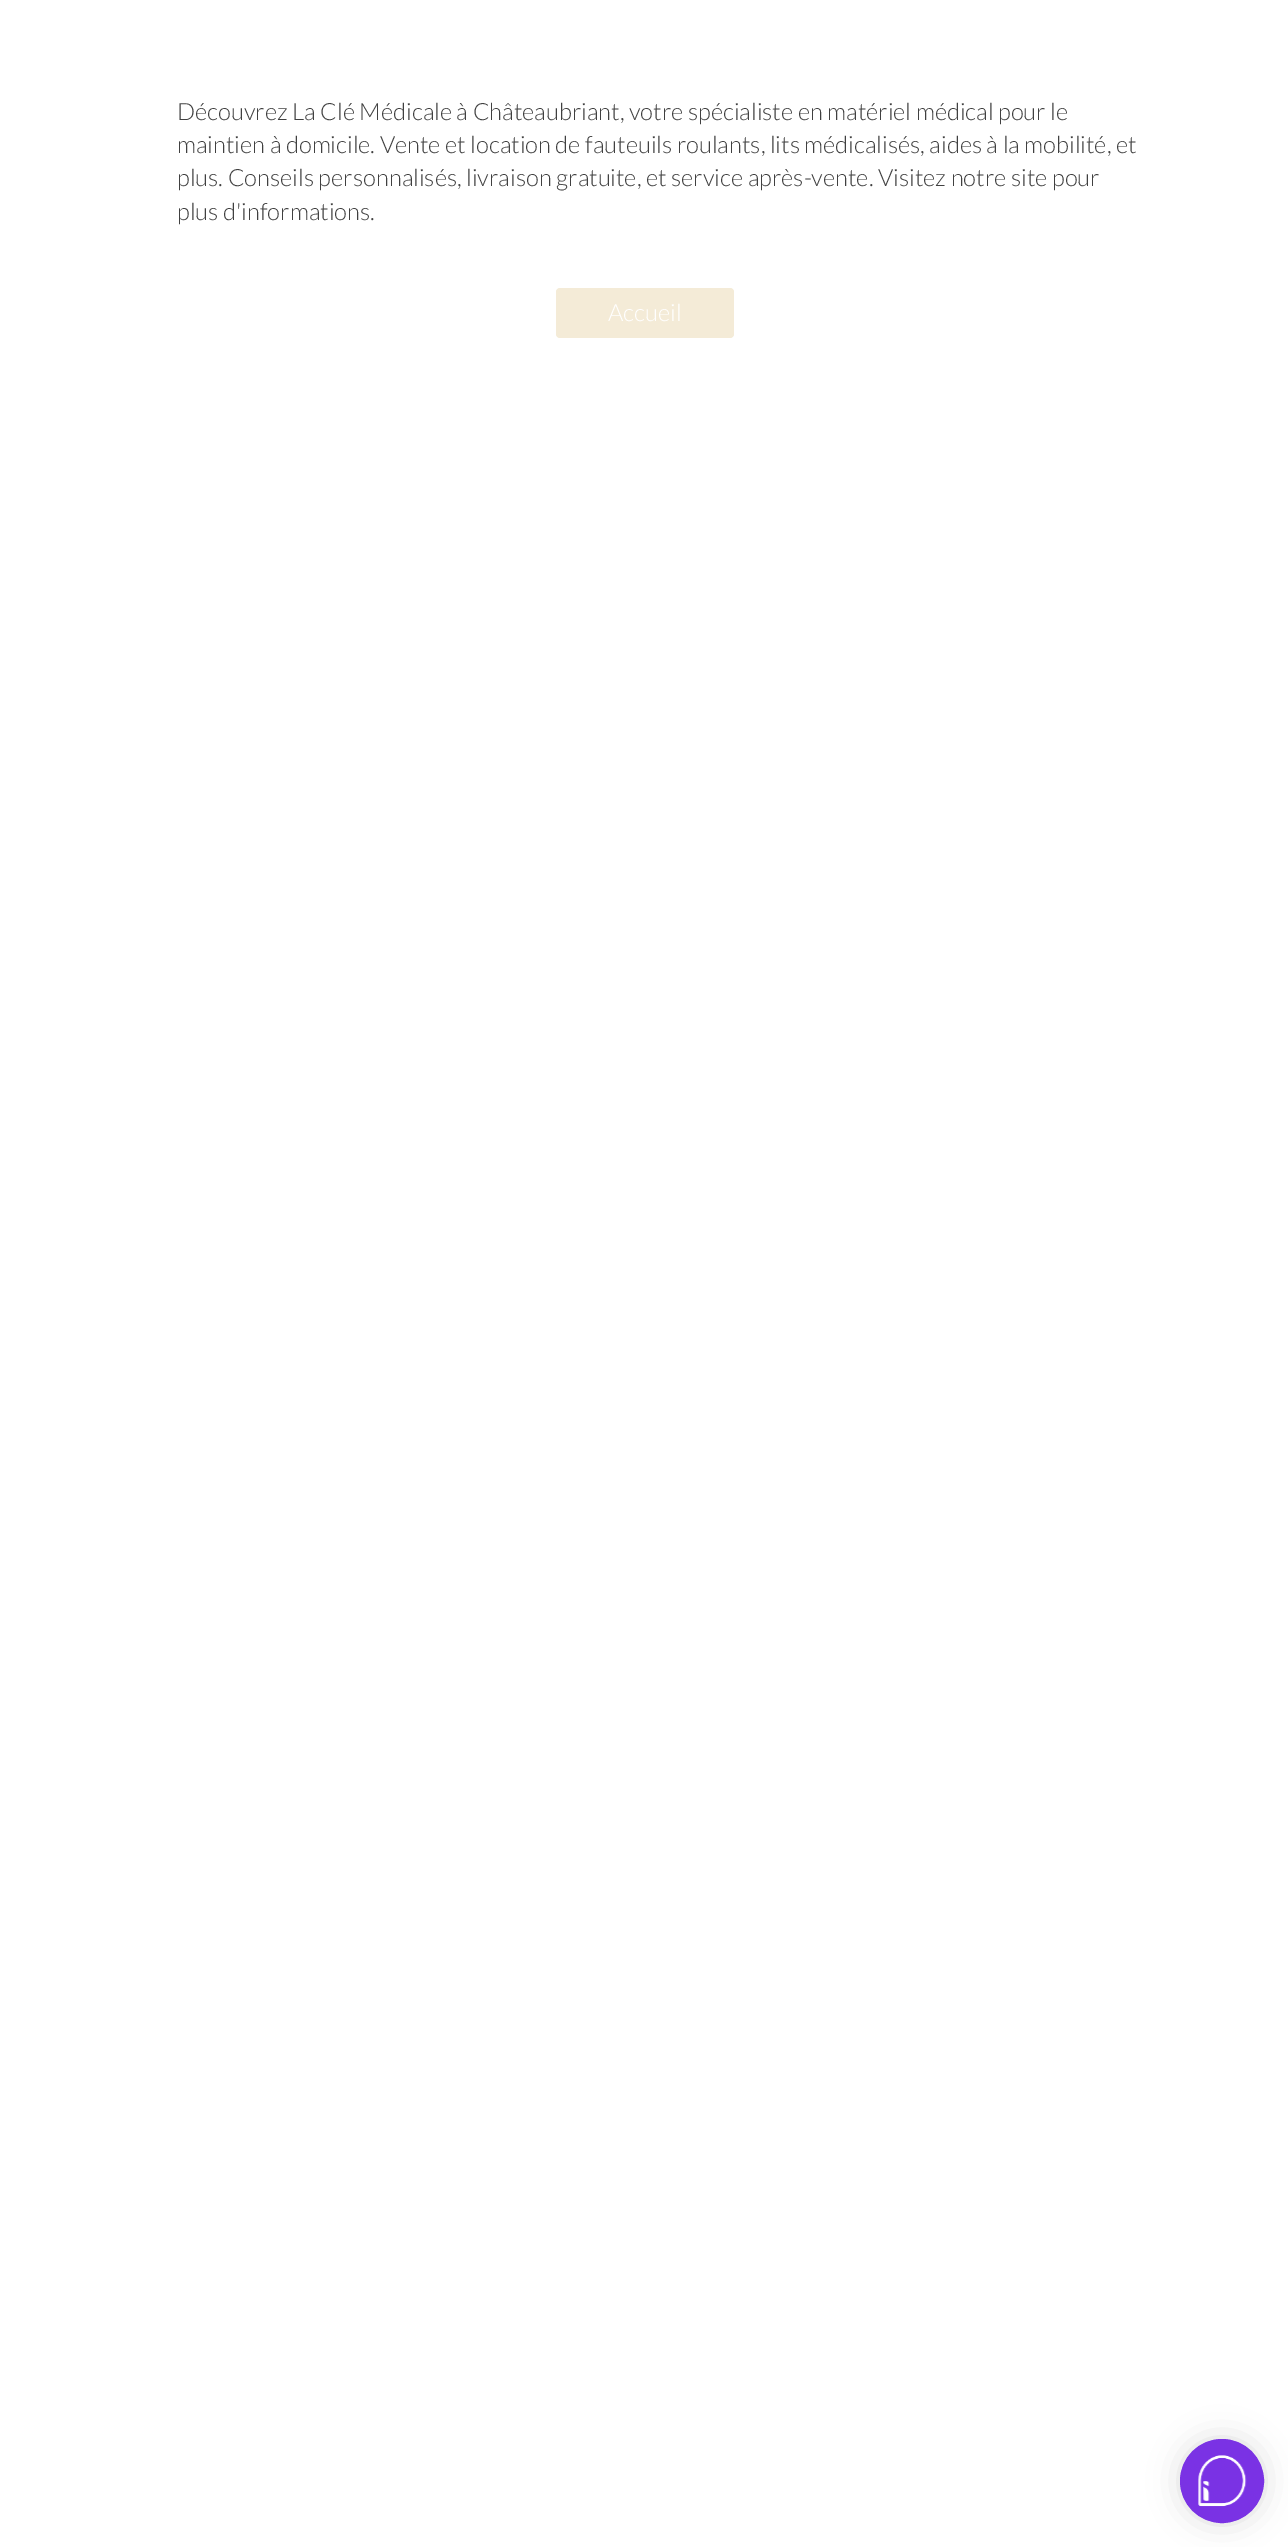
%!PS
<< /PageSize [1288 2547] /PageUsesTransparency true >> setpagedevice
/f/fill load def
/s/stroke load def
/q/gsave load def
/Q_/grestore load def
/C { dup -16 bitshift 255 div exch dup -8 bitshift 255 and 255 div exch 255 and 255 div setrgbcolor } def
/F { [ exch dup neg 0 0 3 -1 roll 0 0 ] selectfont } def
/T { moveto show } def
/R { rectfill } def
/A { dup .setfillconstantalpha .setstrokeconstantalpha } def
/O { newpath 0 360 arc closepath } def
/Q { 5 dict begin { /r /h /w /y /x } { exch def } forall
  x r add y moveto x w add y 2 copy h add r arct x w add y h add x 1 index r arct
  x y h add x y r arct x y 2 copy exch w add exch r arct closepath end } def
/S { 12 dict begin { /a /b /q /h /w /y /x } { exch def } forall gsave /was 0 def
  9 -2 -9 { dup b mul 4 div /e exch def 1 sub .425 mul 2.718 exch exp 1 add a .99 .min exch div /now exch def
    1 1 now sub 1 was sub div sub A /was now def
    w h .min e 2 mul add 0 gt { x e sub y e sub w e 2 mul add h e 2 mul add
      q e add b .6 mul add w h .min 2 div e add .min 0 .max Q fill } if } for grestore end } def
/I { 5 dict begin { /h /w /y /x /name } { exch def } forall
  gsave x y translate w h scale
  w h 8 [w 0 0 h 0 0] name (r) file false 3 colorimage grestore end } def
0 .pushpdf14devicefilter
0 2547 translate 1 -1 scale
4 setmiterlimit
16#FFFFFF C
0 0 1288 2547 R
/Lato-Light 23.75 F
16#404040 C
(Découvrez La Clé Médicale à Châteaubriant, votre spécialiste en matériel médical pour le) 177 120 T
(maintien à domicile. Vente et location de fauteuils roulants, lits médicalisés, aides à la mobilité, et) 177 153 T
(plus. Conseils personnalisés, livraison gratuite, et service après-vente. Visitez notre site pour) 177 186 T
(plus d'informations.) 177 220 T
16#F4EBD7 C
556 288 178 50 4 Q f
16#FFFFFF C
(Accueil) 608 321 T
16#DADADA C
1180 2439 84 84 42 15.5 1 S
16#7A32E4 C
1222 2481 41.5 O q f Q_
s
(1.rgb) 1198 2455 49 52 I
.poppdf14devicefilter showpage
